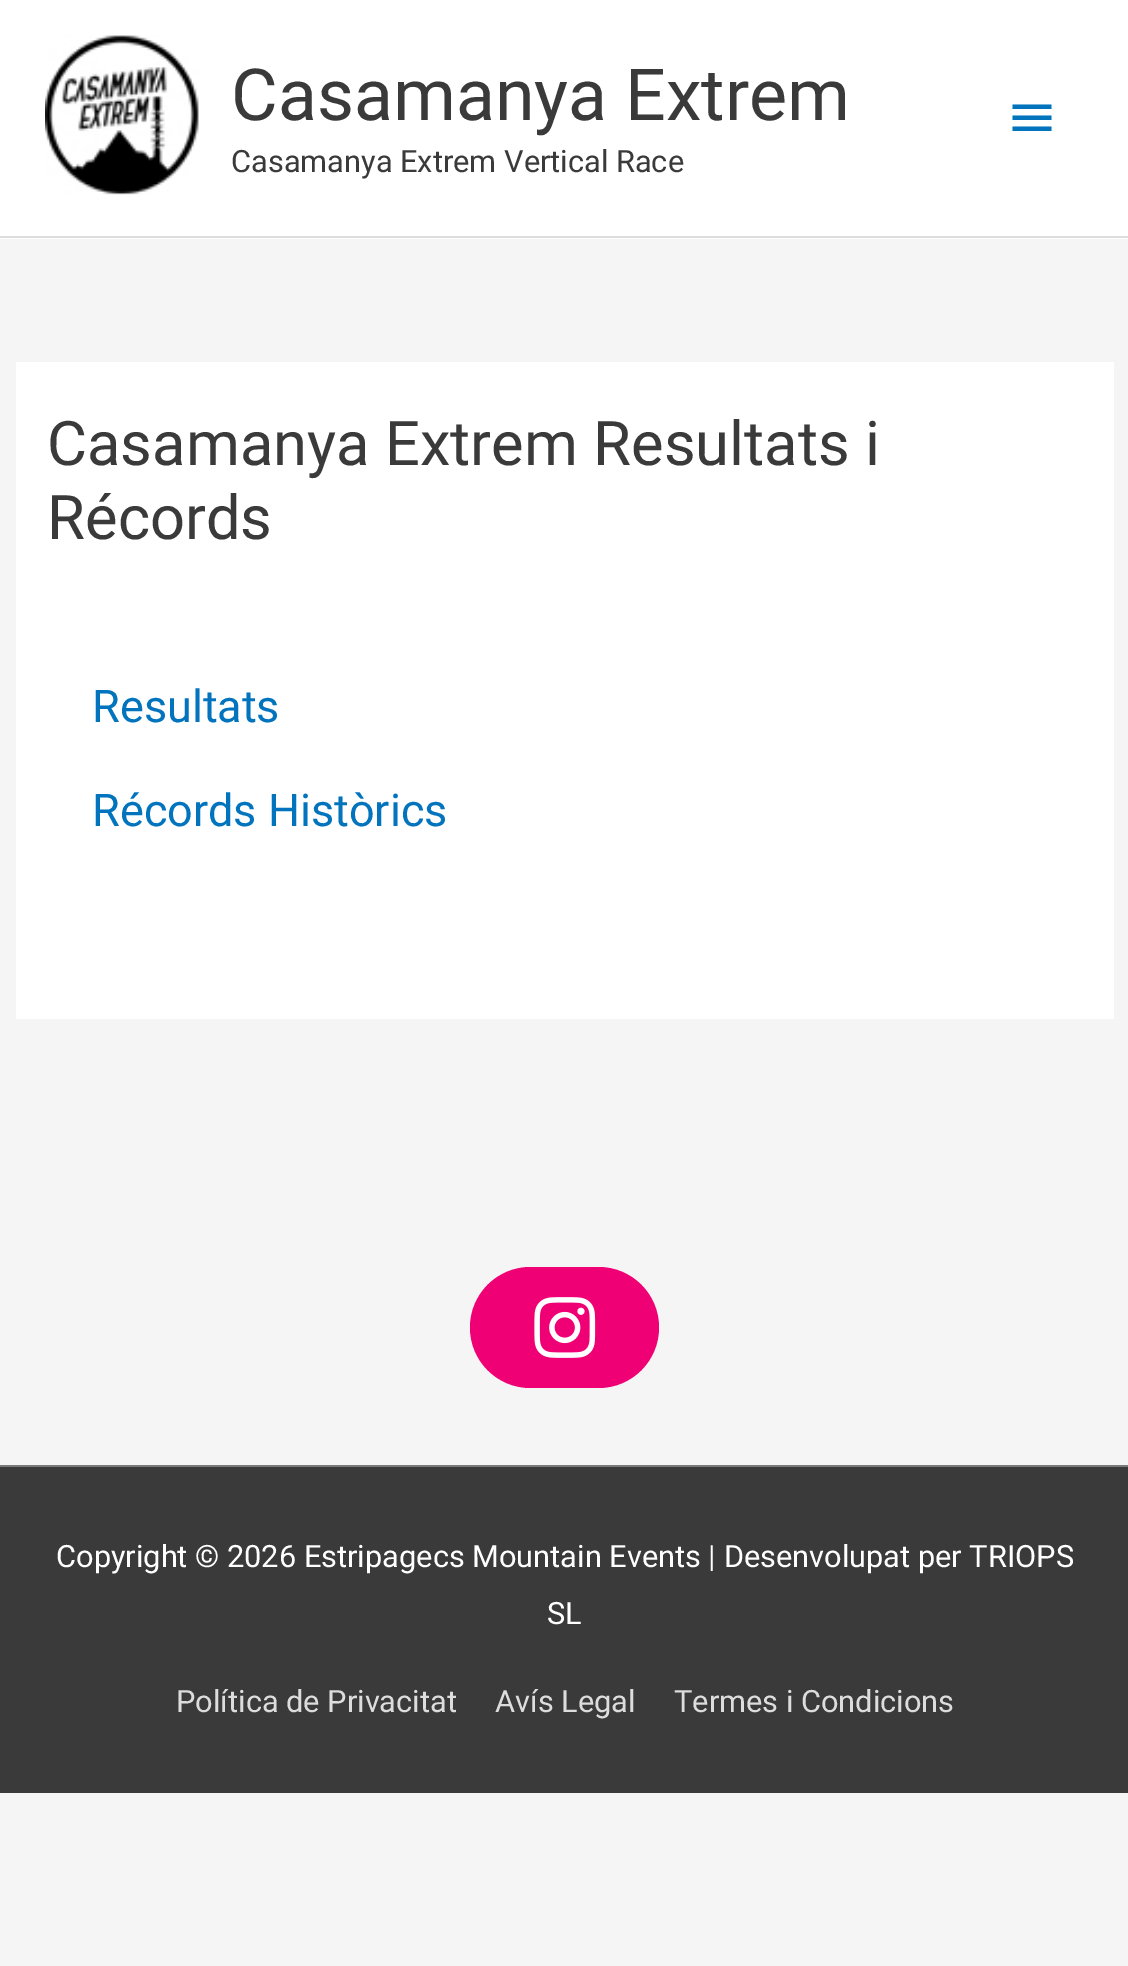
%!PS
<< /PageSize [1128 1966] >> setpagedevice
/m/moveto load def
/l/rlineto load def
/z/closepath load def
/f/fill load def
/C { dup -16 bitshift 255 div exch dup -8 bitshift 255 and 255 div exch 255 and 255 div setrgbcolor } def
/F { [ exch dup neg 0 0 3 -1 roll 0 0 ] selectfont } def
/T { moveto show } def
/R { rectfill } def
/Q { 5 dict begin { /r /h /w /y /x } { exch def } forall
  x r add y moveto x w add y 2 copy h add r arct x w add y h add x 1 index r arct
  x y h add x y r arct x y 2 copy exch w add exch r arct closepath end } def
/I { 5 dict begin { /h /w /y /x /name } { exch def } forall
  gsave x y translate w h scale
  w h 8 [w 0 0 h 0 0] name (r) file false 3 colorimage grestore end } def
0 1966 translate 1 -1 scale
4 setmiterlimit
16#F5F5F5 C
0 0 1128 1966 R
16#FFFFFF C
0 0 1128 239 R
16#DDDDDD C
0 236 1128 2 R
(1.rgb) 45 35 154 160 I
/Roboto-Regular 71.75 F
16#3A3A3A C
(Casamanya Extrem) 231 120 T
/Roboto-Regular 30.75 F
(Casamanya Extrem Vertical Race) 231 172 T
16#0274BE C
1012.5 104.5 m 39 0 l 0 4.5 l -39 0 l z 1012.5 120 m 0 -4.5 l 39 0 l 0 4.5 l z 1012.5 131 m 0 -4.5 l 39 0 l 0 4.5 l z f
16#FFFFFF C
16 362 1098 657 R
/Roboto-Regular 61.5 F
16#3A3A3A C
(Casamanya Extrem Resultats i) 47 465 T
(Récords) 47 539 T
/Roboto-Regular 45 F
16#0274BE C
(Resultats) 92 722 T
(Récords Històrics) 92 826 T
16#F00075 C
470 1267 189 121 60.5 Q f
(2.rgb) 534 1297 62 61 I
16#7A7A7A C
0 1465 1128 2 R
16#3A3A3A C
0 1467 1128 326 R
/Roboto-Regular 30.75 F
16#FFFFFF C
(Copyright © 2026 Estripagecs Mountain Events | Desenvolupat per TRIOPS) 56 1567 T
(SL) 547 1624 T
16#DDDDDD C
(Política de Privacitat) 176 1712 T
(Avís Legal) 495 1712 T
(Termes i Condicions) 674 1712 T
showpage
